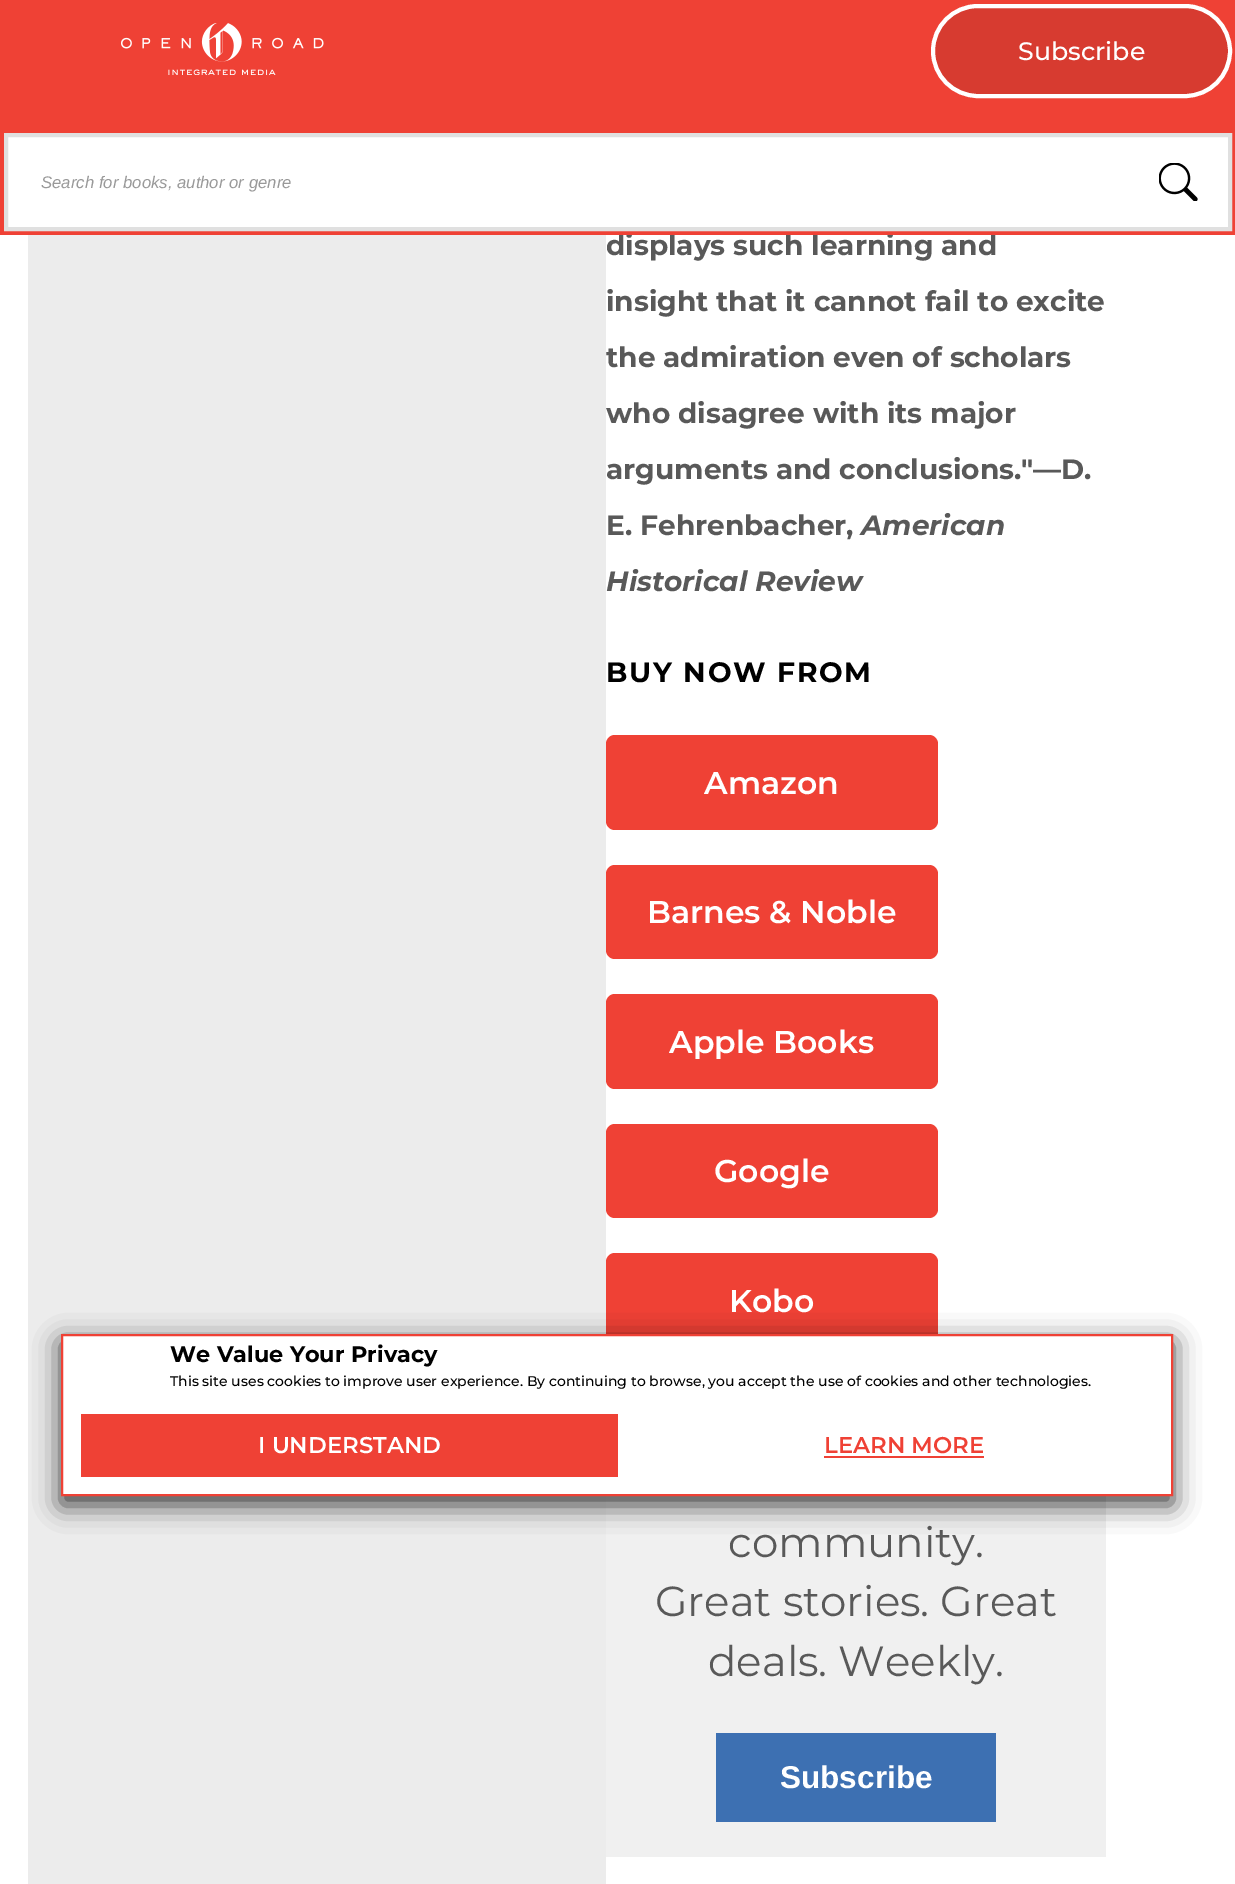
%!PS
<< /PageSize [1235 1884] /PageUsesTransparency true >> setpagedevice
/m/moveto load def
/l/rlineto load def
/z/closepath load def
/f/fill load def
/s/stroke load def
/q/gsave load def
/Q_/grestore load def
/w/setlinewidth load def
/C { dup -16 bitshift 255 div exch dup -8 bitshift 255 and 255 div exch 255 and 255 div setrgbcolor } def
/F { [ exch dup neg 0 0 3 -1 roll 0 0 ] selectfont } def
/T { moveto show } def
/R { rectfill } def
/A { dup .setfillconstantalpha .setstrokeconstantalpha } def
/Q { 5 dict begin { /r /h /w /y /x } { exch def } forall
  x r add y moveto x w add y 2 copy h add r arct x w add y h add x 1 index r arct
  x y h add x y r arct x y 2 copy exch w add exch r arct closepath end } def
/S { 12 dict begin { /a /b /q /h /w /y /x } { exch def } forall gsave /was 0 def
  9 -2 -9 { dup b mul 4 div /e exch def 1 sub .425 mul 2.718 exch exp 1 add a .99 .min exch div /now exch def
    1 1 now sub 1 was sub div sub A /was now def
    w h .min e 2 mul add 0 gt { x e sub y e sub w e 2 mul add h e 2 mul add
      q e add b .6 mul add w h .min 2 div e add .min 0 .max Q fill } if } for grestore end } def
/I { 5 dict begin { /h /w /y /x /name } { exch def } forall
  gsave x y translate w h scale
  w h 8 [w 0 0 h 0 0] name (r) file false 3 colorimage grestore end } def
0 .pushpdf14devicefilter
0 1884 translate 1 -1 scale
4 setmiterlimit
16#FFFFFF C
0 0 1235 1884 R
/Montserrat-Bold 28 F
16#595959 C
(displays such learning and) 606 255 T
16#EF4135 C
0 0 1235 235 R
(1.rgb) 121 23 203 52 I
16#D73B30 C
933 6 297 90 45 Q q f Q_
16#FFFFFF C
4 w
s
/Montserrat-Medium 25.25 F
(Subscribe) 1018 60 T
6 135 m 1224 0 l 0 94 l -1224 0 l z q f Q_
16#E0E0E0 C
s
/LiberationSans-Italic 16.75 F
16#999999 C
(Search for books, author or genre) 41 188 T
(2.rgb) 1159 163 39 38 I
16#ECECEC C
28 235 578 1649 R
/Montserrat-Bold 28 F
16#595959 C
(insight that it cannot fail to excite) 606 311 T
(the admiration even of scholars) 606 367 T
(who disagree with its major) 606 423 T
(arguments and conclusions."—D.) 606 479 T
(E. Fehrenbacher,) 606 535 T
/Montserrat-BoldItalic 28 F
(American) 861 535 T
(Historical Review) 606 591 T
/Montserrat-Bold 28 F
16#000000 C
606 682 m 1.75 0 (BUY NOW FROM) ashow
16#EF4135 C
606 735 332 95 9 Q f
/Montserrat-SemiBold 31.5 F
16#FFFFFF C
(Amazon) 704 794 T
16#EF4135 C
606 865 332 94 9 Q f
16#FFFFFF C
(Barnes & Noble) 647 923 T
16#EF4135 C
606 994 332 95 9 Q f
16#FFFFFF C
(Apple Books) 669 1053 T
16#EF4135 C
606 1124 332 94 9 Q f
16#FFFFFF C
(Google) 714 1182 T
16#EF4135 C
606 1253 332 95 9 Q f
16#FFFFFF C
(Kobo) 729 1312 T
16#F0F0F0 C
606 1496 500 361 R
/Montserrat-Regular 42 F
16#595959 C
(community.) 728 1557 T
(Great stories. Great) 655 1616 T
(deals. Weekly.) 708 1676 T
16#3D70B2 C
716 1733 280 89 R
/LiberationSans-Bold 31.5 F
16#FFFFFF C
(Subscribe) 780 1788 T
16#000000 C
61 1342 1112 163 0 13 .75 S
16#FFFFFF C
62 1335 m 1110 0 l 0 160 l -1110 0 l z q f Q_
16#EF4135 C
2 w
s
/Montserrat-Bold 22.4 F
16#000000 C
(We Value Your Privacy) 170 1362 T
/Montserrat-Medium 14 F
(This site uses cookies to improve user experience. By continuing to browse, you accept the use of cookies and other technologies.) 170 1386 T
16#EF4135 C
81 1414 537 63 R
/Montserrat-SemiBold 22.75 F
16#FFFFFF C
(I UNDERSTAND) 258 1453 T
16#EF4135 C
(LEARN MORE) 824 1453 T
824 1456 160 2 R
.poppdf14devicefilter showpage
